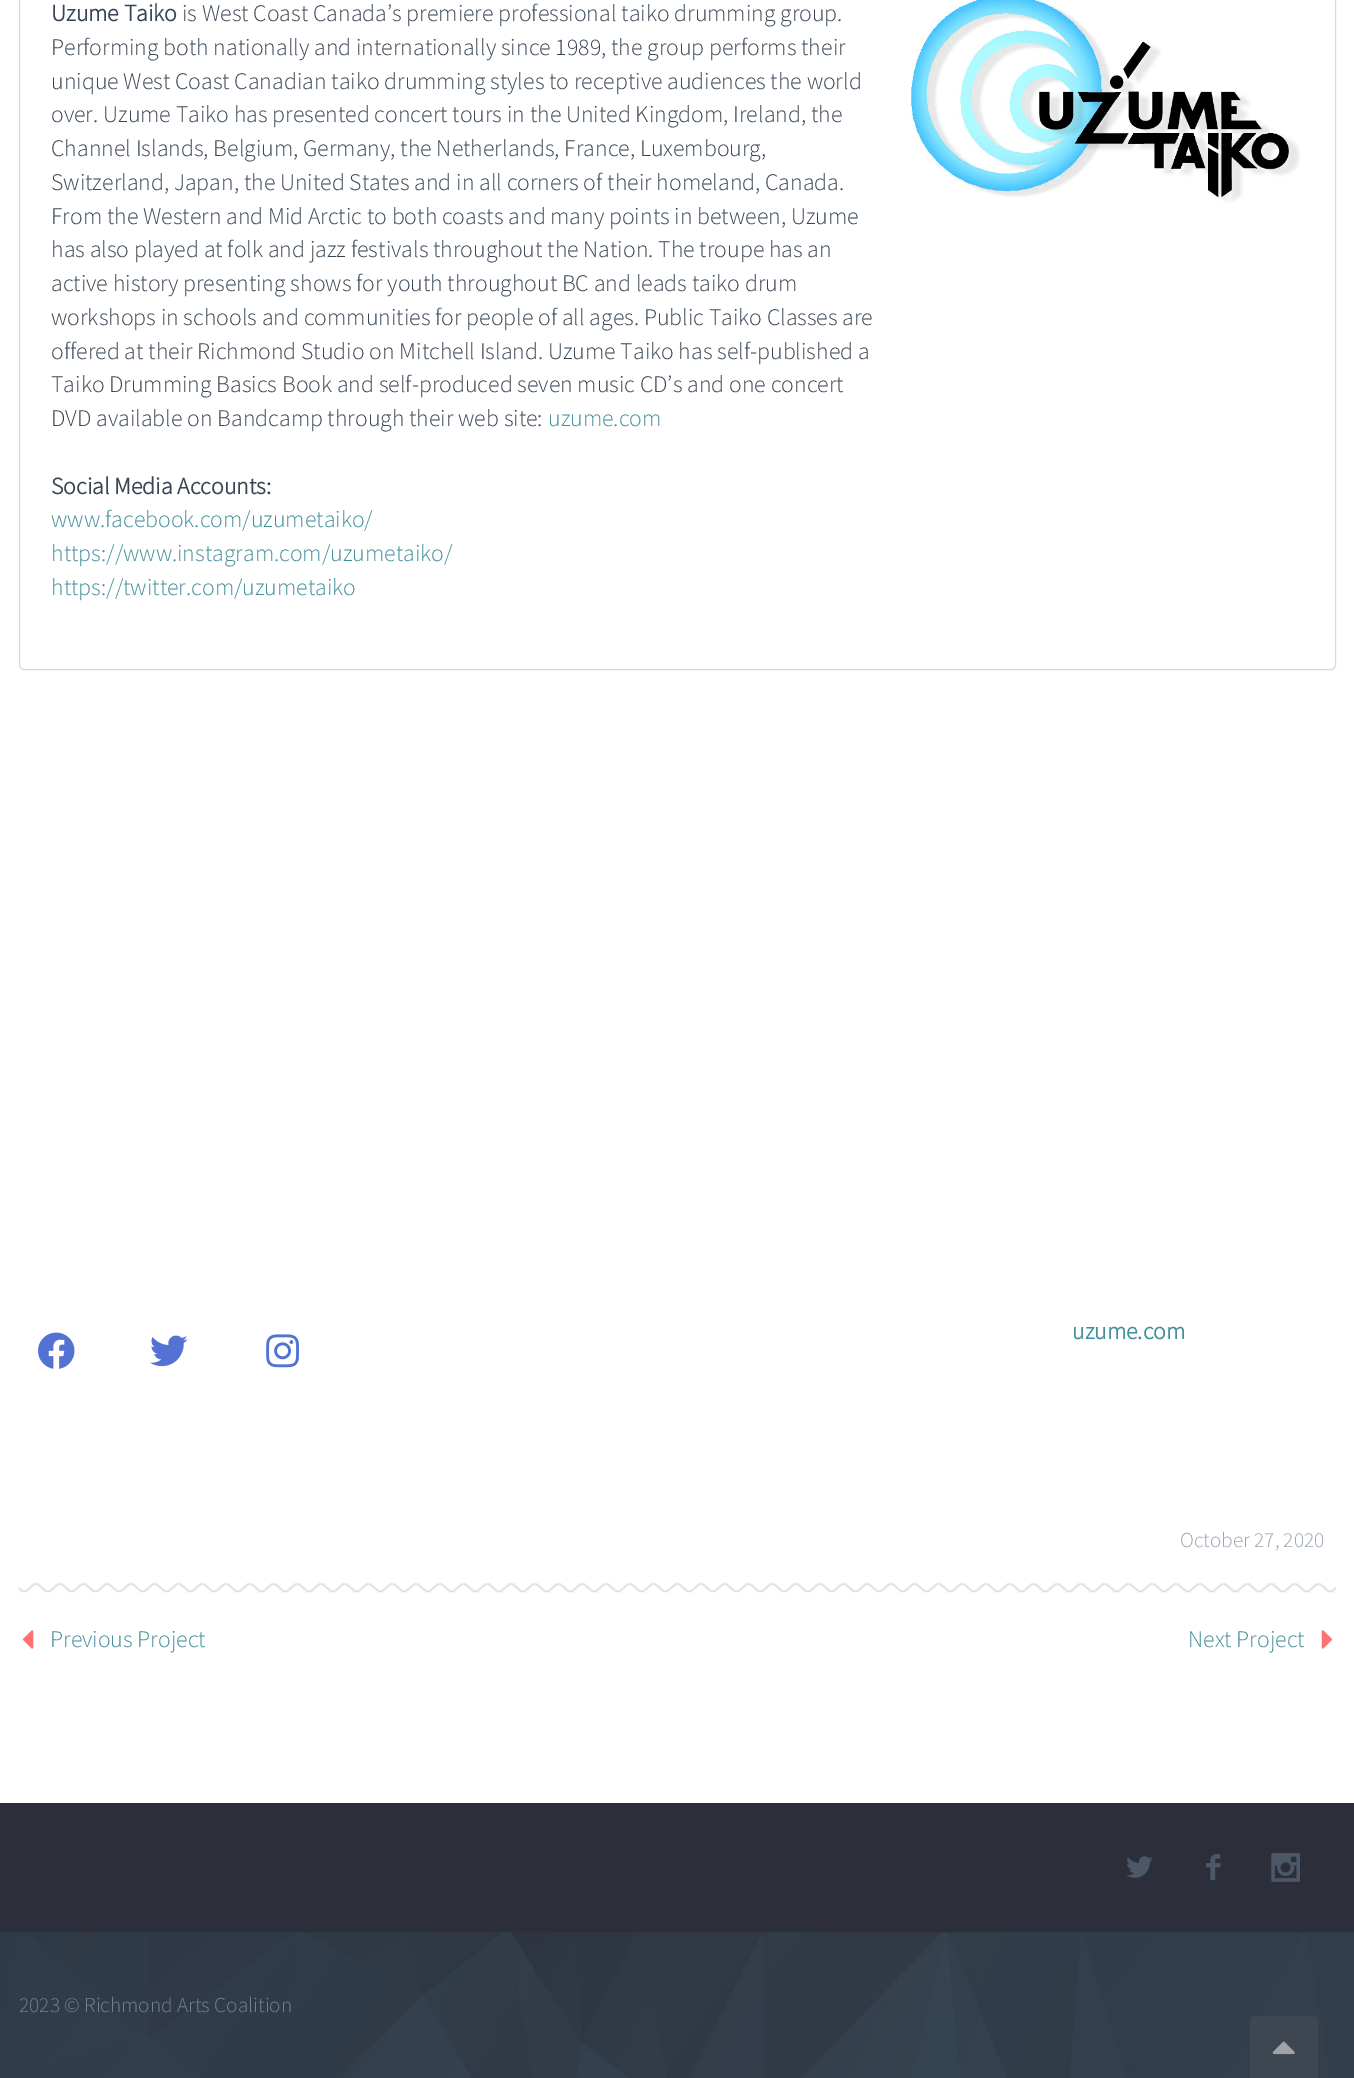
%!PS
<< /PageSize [1354 2078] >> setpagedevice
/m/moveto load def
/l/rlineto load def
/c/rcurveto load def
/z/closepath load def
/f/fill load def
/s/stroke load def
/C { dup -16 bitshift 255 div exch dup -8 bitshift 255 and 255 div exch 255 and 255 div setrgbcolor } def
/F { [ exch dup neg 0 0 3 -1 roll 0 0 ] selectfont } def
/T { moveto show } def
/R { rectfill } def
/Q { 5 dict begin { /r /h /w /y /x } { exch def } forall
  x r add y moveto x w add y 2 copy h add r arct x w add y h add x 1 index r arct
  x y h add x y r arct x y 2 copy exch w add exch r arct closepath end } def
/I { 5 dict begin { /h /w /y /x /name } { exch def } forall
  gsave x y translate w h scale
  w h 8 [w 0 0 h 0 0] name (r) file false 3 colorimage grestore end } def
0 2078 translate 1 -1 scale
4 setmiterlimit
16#2C2E3A C
0 0 1354 2078 R
16#FFFFFF C
0 0 1354 1803 R
16#D2DAE1 C
19.5 -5.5 1316 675 4.5 Q s
/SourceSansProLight-Bold 23.75 F
16#384554 C
(Uzume Taiko) 51 21 T
/SourceSansProLight-Light 23.75 F
(is West Coast Canada’s premiere professional taiko drumming group.) 182 21 T
(Performing both nationally and internationally since 1989, the group performs their) 51 55 T
(unique West Coast Canadian taiko drumming styles to receptive audiences the world) 51 89 T
(over. Uzume Taiko has presented concert tours in the United Kingdom, Ireland, the) 51 122 T
(Channel Islands, Belgium, Germany, the Netherlands, France, Luxembourg,) 51 156 T
(Switzerland, Japan, the United States and in all corners of their homeland, Canada.) 51 190 T
(From the Western and Mid Arctic to both coasts and many points in between, Uzume) 51 224 T
(has also played at folk and jazz festivals throughout the Nation. The troupe has an) 51 257 T
(active history presenting shows for youth throughout BC and leads taiko drum) 51 291 T
(workshops in schools and communities for people of all ages. Public Taiko Classes are) 51 325 T
(offered at their Richmond Studio on Mitchell Island. Uzume Taiko has self-published a) 51 359 T
(Taiko Drumming Basics Book and self-produced seven music CD’s and one concert) 51 392 T
(DVD available on Bandcamp through their web site:) 51 426 T
16#418F9A C
(uzume.com) 548 426 T
/SourceSansProLight-Bold 23.75 F
16#384554 C
(Social Media Accounts:) 51 494 T
/SourceSansProLight-Light 23.75 F
16#418F9A C
(www.facebook.com/uzumetaiko/) 51 527 T
(https://www.instagram.com/uzumetaiko/) 51 561 T
(https://twitter.com/uzumetaiko) 51 595 T
(1.rgb) 911 0 389 203 I
(2.rgb) 38 1332 37 37 I
(3.rgb) 150 1335 38 32 I
(4.rgb) 266 1334 34 34 I
/SourceSansProLight-Bold 23.75 F
(uzume.com) 1072 1339 T
/SourceSansProLight-Light 21.25 F
16#99A3B0 C
(October 27, 2020) 1180 1547 T
(5.rgb) 18 1582 1319 11 I
(6.rgb) 23 1630 11 19 I
/SourceSansProLight-Light 23.75 F
16#418F9A C
(Previous Project) 50 1647 T
(Next Project) 1188 1647 T
(7.rgb) 1321 1630 11 19 I
(8.rgb) 1126 1856 27 22 I
(9.rgb) 1206 1854 15 26 I
(10.rgb) 1271 1853 29 29 I
(11.rgb) 0 1932 1354 146 I
/SourceSansProLight-Light 21.25 F
16#728194 C
(2023 © Richmond Arts Coalition) 19 2012 T
16#3E4751 C
1255 2016 m 58 0 l 3 0 5 2 5 5 c 0 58 l -68 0 l 0 -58 l 0 -3 2 -5 5 -5 c z f
(12.rgb) 1272 2041 23 14 I
showpage
